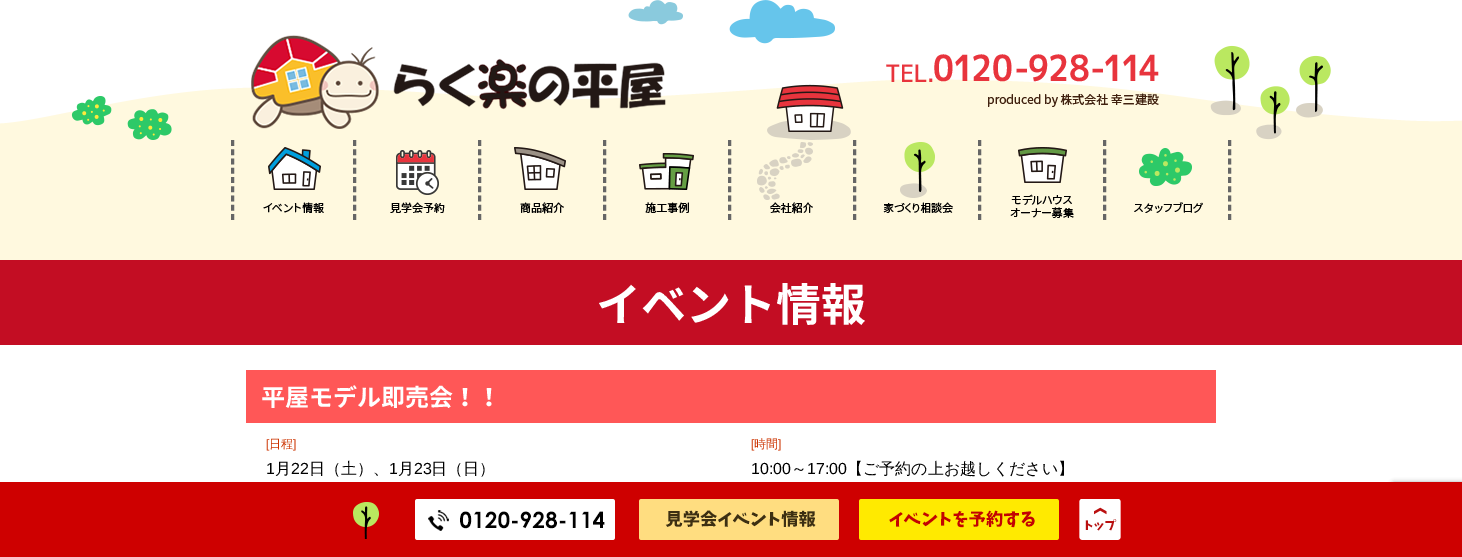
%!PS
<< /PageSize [1462 557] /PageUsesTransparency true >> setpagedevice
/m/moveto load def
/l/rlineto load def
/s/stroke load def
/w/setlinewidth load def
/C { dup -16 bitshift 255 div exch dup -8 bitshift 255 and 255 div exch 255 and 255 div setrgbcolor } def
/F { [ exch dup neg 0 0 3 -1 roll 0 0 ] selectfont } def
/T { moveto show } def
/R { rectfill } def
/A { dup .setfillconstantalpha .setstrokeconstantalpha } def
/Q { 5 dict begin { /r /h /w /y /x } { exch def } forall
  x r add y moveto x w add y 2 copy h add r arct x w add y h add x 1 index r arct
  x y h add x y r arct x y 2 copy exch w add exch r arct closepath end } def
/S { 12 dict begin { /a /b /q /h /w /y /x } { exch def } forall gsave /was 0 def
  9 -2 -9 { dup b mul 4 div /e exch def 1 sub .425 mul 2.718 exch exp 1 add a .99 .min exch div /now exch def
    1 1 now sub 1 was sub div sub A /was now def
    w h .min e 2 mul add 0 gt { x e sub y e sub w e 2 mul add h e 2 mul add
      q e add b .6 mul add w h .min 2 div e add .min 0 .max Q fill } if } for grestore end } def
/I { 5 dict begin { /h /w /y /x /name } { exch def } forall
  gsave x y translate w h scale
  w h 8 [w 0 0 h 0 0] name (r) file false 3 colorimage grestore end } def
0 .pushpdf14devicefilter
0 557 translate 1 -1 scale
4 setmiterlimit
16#FFFFFF C
0 0 1462 557 R
(1.rgb) 0 79 1462 61 I
(2.rgb) 628 0 207 44 I
(3.rgb) 71 96 101 44 I
(4.rgb) 251 35 415 94 I
(5.rgb) 767 84 84 56 I
(6.rgb) 886 54 273 53 I
(7.rgb) 1210 45 121 95 I
16#FFF9DF C
0 140 1462 120 R
16#666666 C
3 w
[6 3.25] 0 setdash
354.5 140 m 0 80 l s
232.5 140 m 0 80 l s
(8.rgb) 263 147 61 66 I
479.5 140 m 0 80 l s
(9.rgb) 390 150 55 63 I
604.5 140 m 0 80 l s
(10.rgb) 514 147 52 67 I
729.5 140 m 0 80 l s
(11.rgb) 639 153 55 60 I
854.5 140 m 0 80 l s
(12.rgb) 757 142 56 72 I
979.5 140 m 0 80 l s
(13.rgb) 883 142 70 71 I
1104.5 140 m 0 80 l s
(14.rgb) 1010 147 64 71 I
1229.5 140 m 0 80 l s
(15.rgb) 1134 148 69 65 I
16#C30D23 C
0 260 1462 85 R
/NotoSansJP-Bold 45 F
16#FFFFFF C
(イベント情報) 596 321 T
16#FF5757 C
246 370 970 53 R
/NotoSansJP-Bold 24 F
16#FFFFFF C
(平屋モデル即売会！！) 261 406 T
/LiberationSans-Regular 12 F
16#CC3300 C
([) 266 448 T
/WenQuanYiZenHei-Medium 12 F
(日程) 269 448 T
/LiberationSans-Regular 12 F
(]) 293 448 T
/LiberationSans-Regular 16 F
16#000000 C
(1) 266 474 T
/WenQuanYiZenHei-Medium 16 F
(月) 275 474 T
/LiberationSans-Regular 16 F
(22) 291 474 T
/WenQuanYiZenHei-Medium 16 F
(日（土）、) 309 474 T
/LiberationSans-Regular 16 F
(1) 389 474 T
/WenQuanYiZenHei-Medium 16 F
(月) 398 474 T
/LiberationSans-Regular 16 F
(23) 414 474 T
/WenQuanYiZenHei-Medium 16 F
(日（日）) 431 474 T
/LiberationSans-Regular 12 F
16#CC3300 C
([) 751 448 T
/WenQuanYiZenHei-Medium 12 F
(時間) 754 448 T
/LiberationSans-Regular 12 F
(]) 778 448 T
/LiberationSans-Regular 16 F
16#000000 C
(10:00) 751 474 T
/WenQuanYiZenHei-Medium 16 F
(～) 791 474 T
/LiberationSans-Regular 16 F
(17:00) 807 474 T
/WenQuanYiZenHei-Medium 16 F
(【ご予約の上お越しください】) 847 474 T
16#808080 C
1392 483 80 60 2 2.5 1 S
16#CE0000 C
0 482 1462 75 R
(16.rgb) 353 502 26 37 I
(17.rgb) 415 499 200 41 I
(18.rgb) 639 499 200 41 I
(19.rgb) 859 499 200 41 I
(20.rgb) 1079 499 42 41 I
.poppdf14devicefilter showpage
